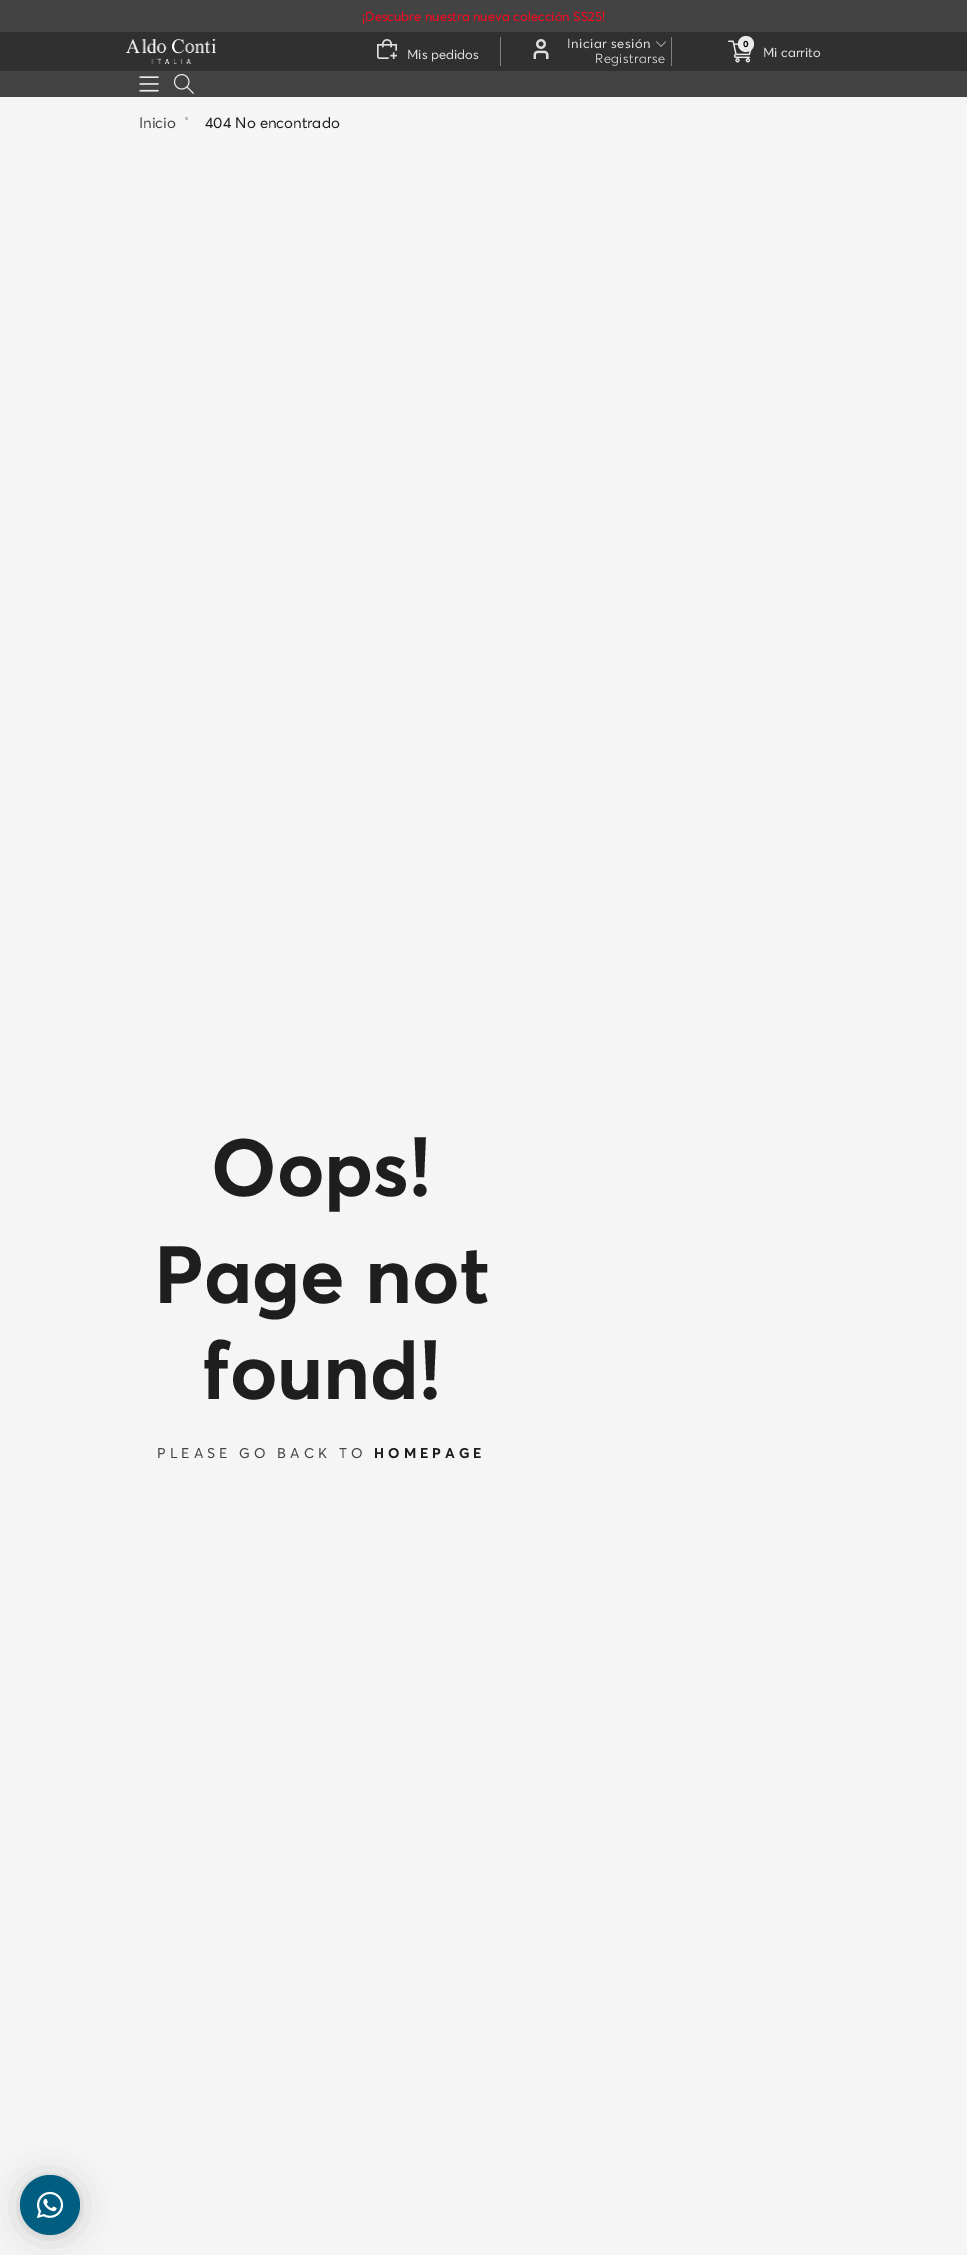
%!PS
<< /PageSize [967 2255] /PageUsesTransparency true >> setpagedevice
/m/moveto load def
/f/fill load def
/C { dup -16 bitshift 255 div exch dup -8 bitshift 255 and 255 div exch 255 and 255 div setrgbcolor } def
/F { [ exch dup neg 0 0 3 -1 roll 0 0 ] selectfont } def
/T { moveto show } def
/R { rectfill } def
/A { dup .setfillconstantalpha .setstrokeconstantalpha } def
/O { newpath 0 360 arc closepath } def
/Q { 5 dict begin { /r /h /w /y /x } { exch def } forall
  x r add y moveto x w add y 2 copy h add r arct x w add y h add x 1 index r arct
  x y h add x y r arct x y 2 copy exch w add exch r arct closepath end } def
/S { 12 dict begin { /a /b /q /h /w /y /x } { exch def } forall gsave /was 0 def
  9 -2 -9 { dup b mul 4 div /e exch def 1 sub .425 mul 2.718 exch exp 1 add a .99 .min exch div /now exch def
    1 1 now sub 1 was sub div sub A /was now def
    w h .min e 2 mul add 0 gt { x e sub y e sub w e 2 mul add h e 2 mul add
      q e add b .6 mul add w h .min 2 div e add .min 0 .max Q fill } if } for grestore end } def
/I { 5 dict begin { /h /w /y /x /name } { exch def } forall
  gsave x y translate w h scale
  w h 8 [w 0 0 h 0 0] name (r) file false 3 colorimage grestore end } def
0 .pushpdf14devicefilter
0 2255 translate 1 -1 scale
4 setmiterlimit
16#F5F5F5 C
0 0 967 2255 R
16#434343 C
0 0 967 32 R
/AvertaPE-Regular 13 F
16#FF051D C
(¡Descubre nuestra nueva colección SS25!) 362 21 T
16#303030 C
0 32 967 39 R
(1.rgb) 126 39 90 25 I
16#808080 C
500 37 1 29 R
(2.rgb) 377 39 20 20 I
16#DFDFDF C
(Mis pedidos) 407 59 T
16#808080 C
671 37 1 29 R
(3.rgb) 533 39 16 20 I
16#DFDFDF C
567 48 m .5 0 (Iniciar sesión) ashow
(4.rgb) 656 41 10 6 I
/AvertaPE-Light 13 F
16#FFFFFF C
595 63 m .5 0 (Registrarse) ashow
(5.rgb) 728 40 25 23 I
16#EAEAEA C
746 44 8 O f
/AvertaPE-Bold 9 F
16#000000 C
(0) 743 47 T
/AvertaPE-Regular 13 F
16#DFDFDF C
(Mi carrito) 763 57 T
16#424242 C
0 71 967 26 R
(6.rgb) 139 76 20 16 I
(7.rgb) 174 74 20 20 I
/AvertaPE-Regular 15 F
(Inicio) 139 128 T
16#BEBEBE C
185 117 3 3 R
16#1E1E1E C
(404 No encontrado) 205 128 T
/AvertaPE-Bold 80 F
(Oops!) 211 1196 T
(Page not) 154 1303 T
(found!) 202 1399 T
/AvertaPE-Regular 14 F
16#424242 C
157 1458 m 4 0 (PLEASE GO BACK TO) ashow
/AvertaPE-Bold 14 F
16#1E1E1E C
374 1458 m 4 0 (HOMEPAGE) ashow
16#000000 C
20 2177 60 60 30 16 .16 S
20 2176 60 60 30 3 .06 S
16#015E80 C
50 2205 30 O f
(8.rgb) 37 2191 27 27 I
.poppdf14devicefilter showpage
